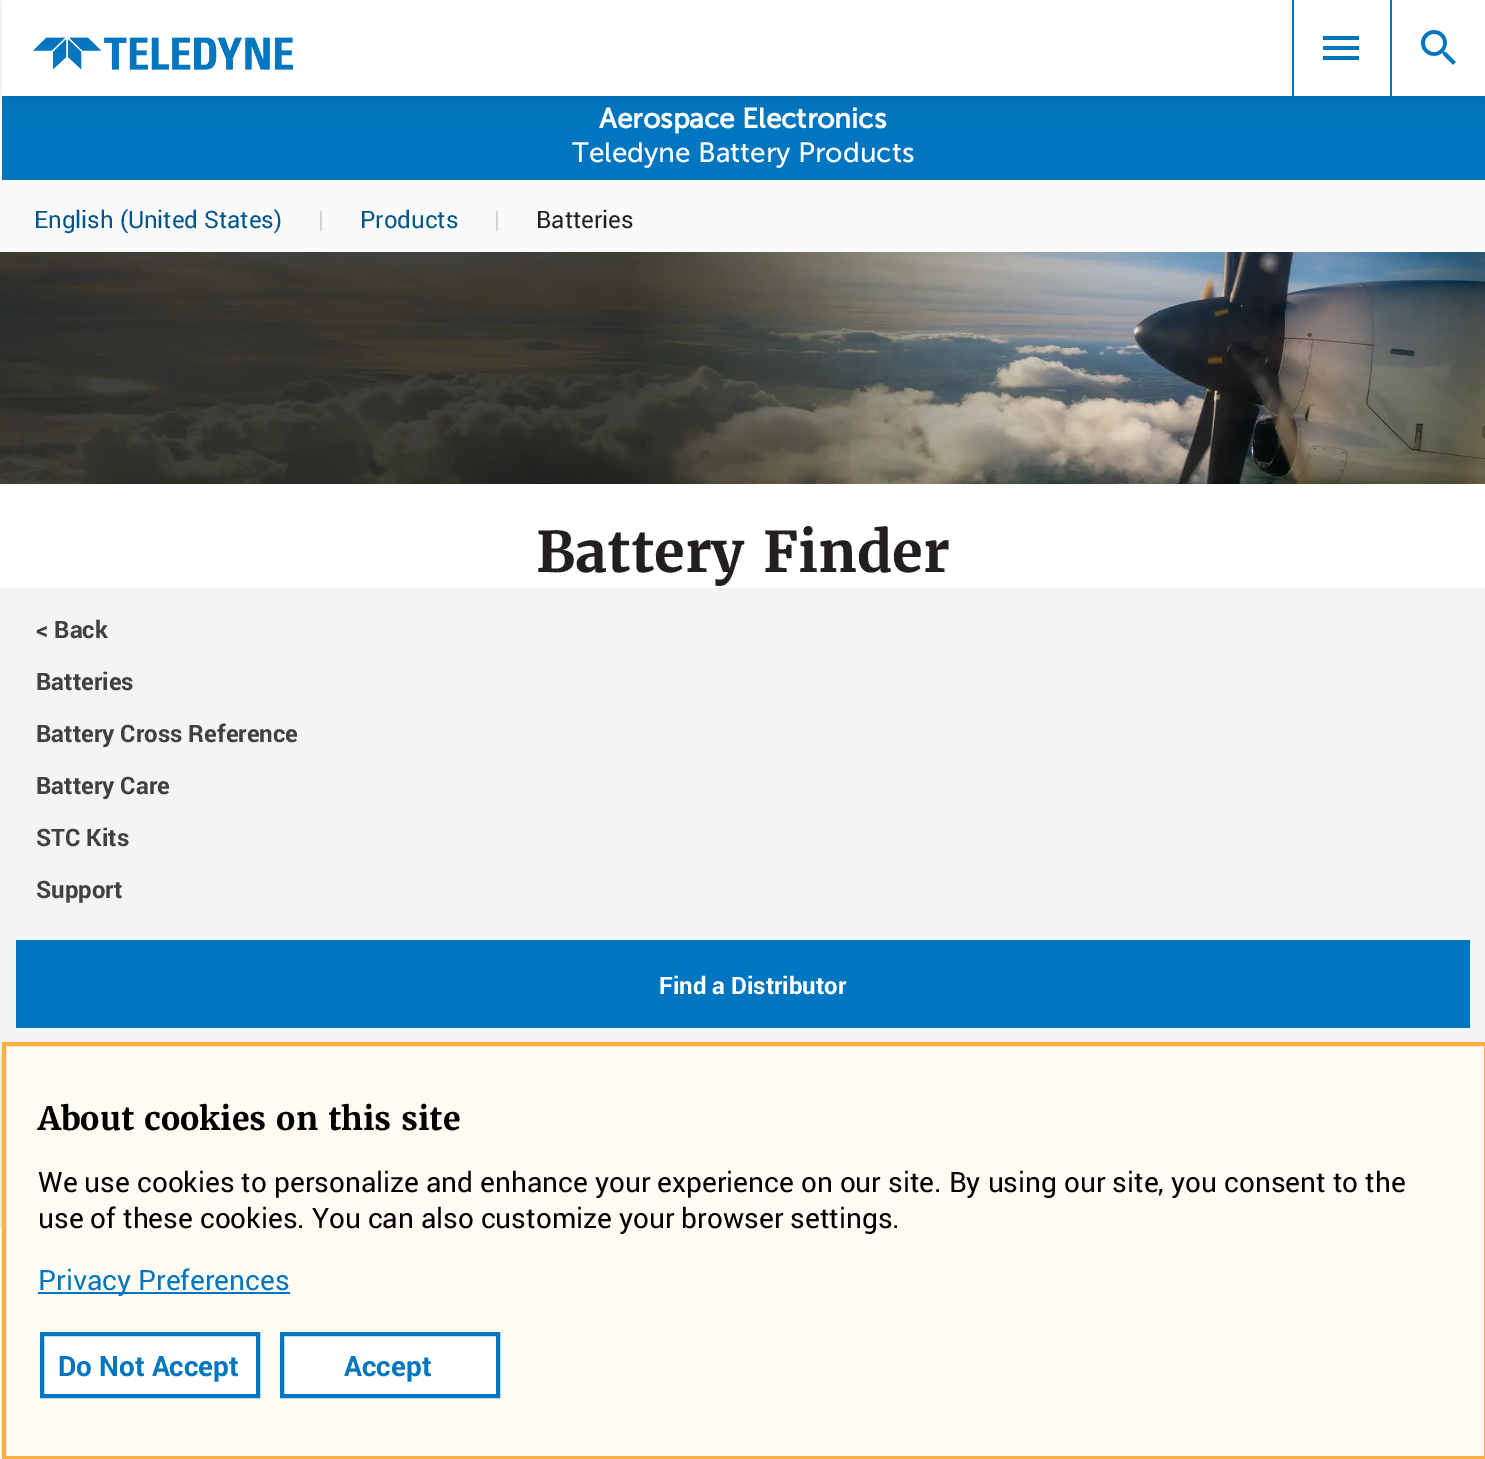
%!PS
<< /PageSize [1485 1459] /PageUsesTransparency true >> setpagedevice
/m/moveto load def
/l/rlineto load def
/z/closepath load def
/f/fill load def
/s/stroke load def
/q/gsave load def
/Q_/grestore load def
/w/setlinewidth load def
/C { dup -16 bitshift 255 div exch dup -8 bitshift 255 and 255 div exch 255 and 255 div setrgbcolor } def
/F { [ exch dup neg 0 0 3 -1 roll 0 0 ] selectfont } def
/T { moveto show } def
/R { rectfill } def
/A { dup .setfillconstantalpha .setstrokeconstantalpha } def
/Q { 5 dict begin { /r /h /w /y /x } { exch def } forall
  x r add y moveto x w add y 2 copy h add r arct x w add y h add x 1 index r arct
  x y h add x y r arct x y 2 copy exch w add exch r arct closepath end } def
/S { 12 dict begin { /a /b /q /h /w /y /x } { exch def } forall gsave /was 0 def
  9 -2 -9 { dup b mul 4 div /e exch def 1 sub .425 mul 2.718 exch exp 1 add a .99 .min exch div /now exch def
    1 1 now sub 1 was sub div sub A /was now def
    w h .min e 2 mul add 0 gt { x e sub y e sub w e 2 mul add h e 2 mul add
      q e add b .6 mul add w h .min 2 div e add .min 0 .max Q fill } if } for grestore end } def
/I { 5 dict begin { /h /w /y /x /name } { exch def } forall
  gsave x y translate w h scale
  w h 8 [w 0 0 h 0 0] name (r) file false 3 colorimage grestore end } def
0 .pushpdf14devicefilter
0 1459 translate 1 -1 scale
4 setmiterlimit
16#FFFFFF C
0 0 1485 1459 R
16#0076C0 C
2 96 1483 84 R
q
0 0 m 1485 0 l 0 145 l -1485 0 l z 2 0 m 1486 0 l 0 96 l -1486 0 l z eoclip newpath
16#000000 C
2 0 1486 96 0 16 .1 S
Q_
(1.rgb) 33 37 260 33 I
1390 0 2 96 R
1292 0 2 96 R
1323 36 m 36 0 l 0 4 l -36 0 l z 1323 50 m 0 -4 l 36 0 l 0 4 l z 1323 60 m 0 -4 l 36 0 l 0 4 l z f
(2.rgb) 1421 30 35 35 I
/MuseoSans-Bold 28 F
16#FFFFFF C
(Aerospace Electronics) 599 128 T
/MuseoSans-Regular 28 F
(Teledyne Battery Products) 572 162 T
16#FAFAFA C
0 180 1485 72 R
/Roboto-Regular 24 F
16#00568C C
(English \(United States\)) 34 228 T
16#D1D3D4 C
(|) 318 228 T
16#00568C C
(Products) 360 228 T
16#D1D3D4 C
(|) 494 228 T
16#231F20 C
(Batteries) 536 228 T
(3.rgb) 0 252 1485 232 I
/Merriweather-Bold 56 F
(Battery Finder) 536 572 T
16#F4F4F4 C
0 588 1485 640 R
/Roboto-Bold 24 F
16#404040 C
(< Back) 36 638 T
(Batteries) 36 690 T
(Battery Cross Reference) 36 742 T
(Battery Care) 36 794 T
(STC Kits) 36 846 T
(Support) 36 898 T
16#0076C0 C
16 940 1454 88 R
16#FFFFFF C
(Find a Distributor) 659 994 T
16#000000 C
2 1052 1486 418 0 5 .1 S
16#FFFAF2 C
4 1044 m 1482 0 l 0 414 l -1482 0 l z q f Q_
16#F8AF43 C
4 w
s
/Merriweather-Bold 32 F
16#000000 C
(About cookies on this site) 38 1130 T
/Roboto-Regular 28 F
(We use cookies to personalize and enhance your experience on our site. By using our site, you consent to the) 38 1192 T
(use of these cookies. You can also customize your browser settings.) 38 1228 T
16#0076C0 C
38 1292 252 2 R
(Privacy Preferences) 38 1290 T
16#FFFFFF C
42 1334 m 216 0 l 0 62 l -216 0 l z q f Q_
16#0076C0 C
s
/Roboto-Bold 28 F
(Do Not Accept) 58 1376 T
16#FFFFFF C
282 1334 m 216 0 l 0 62 l -216 0 l z q f Q_
16#0076C0 C
s
(Accept) 344 1376 T
.poppdf14devicefilter showpage
